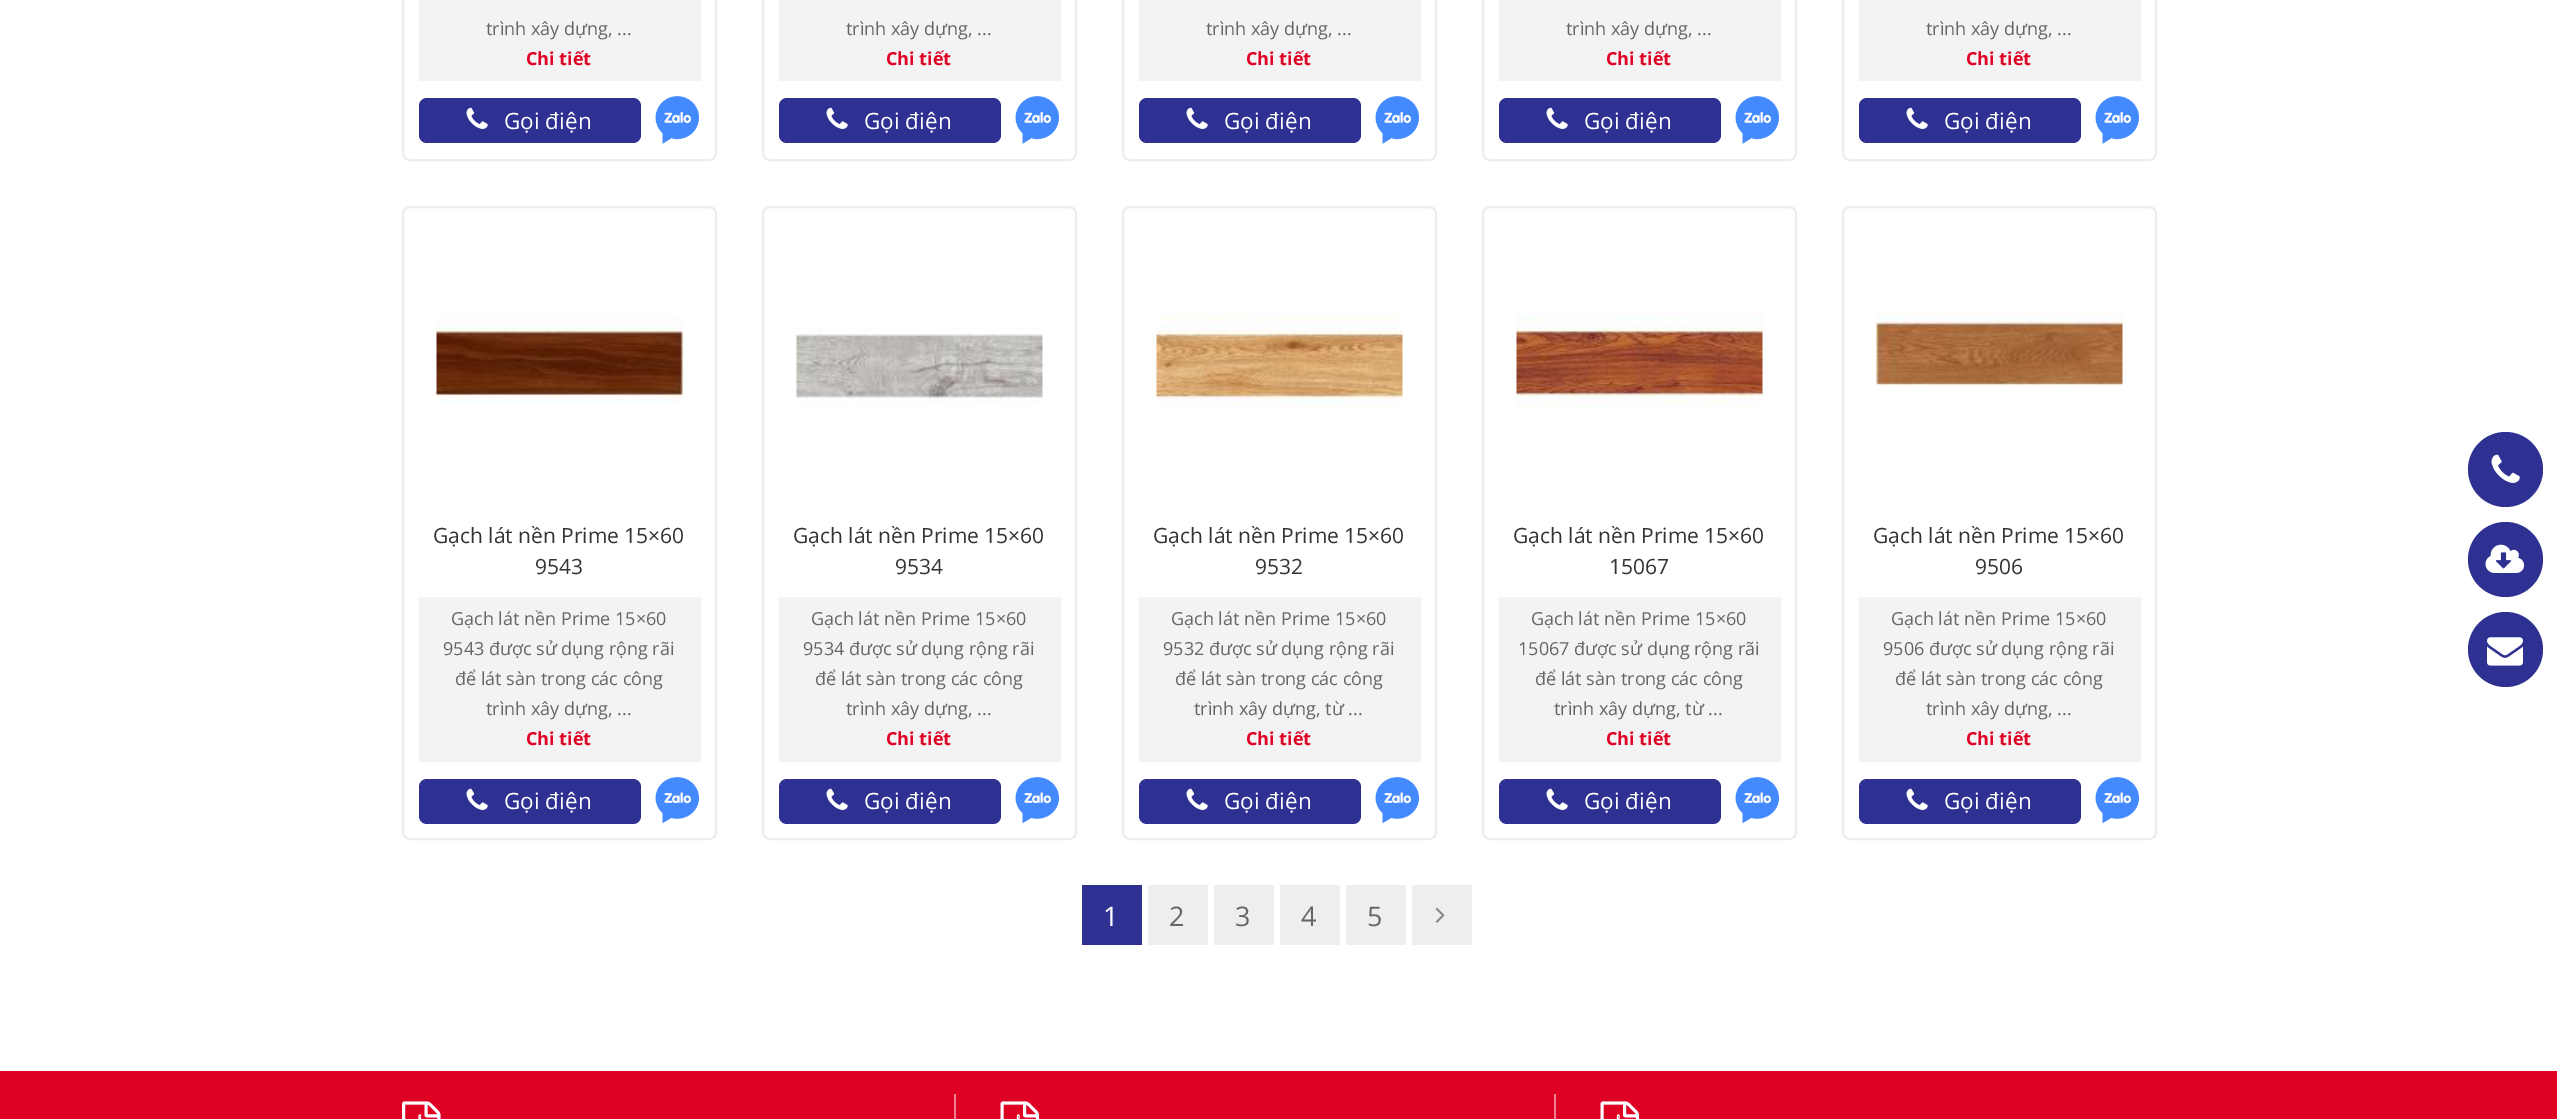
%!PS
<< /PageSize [2557 1119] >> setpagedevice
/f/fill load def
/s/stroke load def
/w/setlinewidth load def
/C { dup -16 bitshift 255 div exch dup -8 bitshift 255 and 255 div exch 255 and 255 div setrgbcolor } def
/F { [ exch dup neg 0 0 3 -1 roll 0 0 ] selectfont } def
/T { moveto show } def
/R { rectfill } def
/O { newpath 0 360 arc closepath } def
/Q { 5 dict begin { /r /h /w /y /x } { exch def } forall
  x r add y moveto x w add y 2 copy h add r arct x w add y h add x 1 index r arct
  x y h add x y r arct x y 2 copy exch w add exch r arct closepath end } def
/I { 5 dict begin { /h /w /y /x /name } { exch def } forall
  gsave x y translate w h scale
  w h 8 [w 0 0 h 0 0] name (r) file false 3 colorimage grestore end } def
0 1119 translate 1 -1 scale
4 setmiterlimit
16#FFFFFF C
0 0 2557 1119 R
16#EDEDED C
2 w
403 -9 313 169 7 Q s
16#F3F3F3 C
419 0 282 81 R
/OpenSans-Regular 18 F
16#666666 C
(trình xây dựng, ...) 486 35 T
/OpenSans-Bold 18 F
16#DE0124 C
(Chi tiết) 526 65 T
16#2E3192 C
419 98 222 45 8 Q f
(1.rgb) 466 107 22 22 I
/OpenSans-Regular 22.5 F
16#FFFFFF C
(Gọi điện) 504 129 T
(2.rgb) 655 96 44 48 I
16#EDEDED C
763 -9 313 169 7 Q s
16#F3F3F3 C
779 0 282 81 R
/OpenSans-Regular 18 F
16#666666 C
(trình xây dựng, ...) 846 35 T
/OpenSans-Bold 18 F
16#DE0124 C
(Chi tiết) 886 65 T
16#2E3192 C
779 98 222 45 8 Q f
(1.rgb) 826 107 22 22 I
/OpenSans-Regular 22.5 F
16#FFFFFF C
(Gọi điện) 864 129 T
(2.rgb) 1015 96 44 48 I
16#EDEDED C
1123 -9 313 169 7 Q s
16#F3F3F3 C
1139 0 282 81 R
/OpenSans-Regular 18 F
16#666666 C
(trình xây dựng, ...) 1206 35 T
/OpenSans-Bold 18 F
16#DE0124 C
(Chi tiết) 1246 65 T
16#2E3192 C
1139 98 222 45 8 Q f
(1.rgb) 1186 107 22 22 I
/OpenSans-Regular 22.5 F
16#FFFFFF C
(Gọi điện) 1224 129 T
(2.rgb) 1375 96 44 48 I
16#EDEDED C
1483 -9 313 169 7 Q s
16#F3F3F3 C
1499 0 282 81 R
/OpenSans-Regular 18 F
16#666666 C
(trình xây dựng, ...) 1566 35 T
/OpenSans-Bold 18 F
16#DE0124 C
(Chi tiết) 1606 65 T
16#2E3192 C
1499 98 222 45 8 Q f
(1.rgb) 1546 107 22 22 I
/OpenSans-Regular 22.5 F
16#FFFFFF C
(Gọi điện) 1584 129 T
(3.rgb) 1735 96 44 48 I
16#EDEDED C
1843 -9 313 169 7 Q s
16#F3F3F3 C
1859 0 282 81 R
/OpenSans-Regular 18 F
16#666666 C
(trình xây dựng, ...) 1926 35 T
/OpenSans-Bold 18 F
16#DE0124 C
(Chi tiết) 1966 65 T
16#2E3192 C
1859 98 222 45 8 Q f
(1.rgb) 1906 107 22 22 I
/OpenSans-Regular 22.5 F
16#FFFFFF C
(Gọi điện) 1944 129 T
(2.rgb) 2095 96 44 48 I
16#EDEDED C
403 207 313 632 7 Q s
(4.rgb) 436 316 247 87 I
/OpenSans-Regular 21 F
16#333333 C
(Gạch lát nền Prime 15×60) 433 543 T
(9543) 535 574 T
16#F3F3F3 C
419 597 282 165 R
/OpenSans-Regular 18 F
16#666666 C
(Gạch lát nền Prime 15×60) 451 625 T
(9543 được sử dụng rộng rãi) 443 655 T
(để lát sàn trong các công) 455 685 T
(trình xây dựng, ...) 486 715 T
/OpenSans-Bold 18 F
16#DE0124 C
(Chi tiết) 526 745 T
16#2E3192 C
419 779 222 45 8 Q f
(1.rgb) 466 788 22 22 I
/OpenSans-Regular 22.5 F
16#FFFFFF C
(Gọi điện) 504 809 T
(5.rgb) 655 777 44 47 I
16#EDEDED C
763 207 313 632 7 Q s
(6.rgb) 796 327 247 78 I
/OpenSans-Regular 21 F
16#333333 C
(Gạch lát nền Prime 15×60) 793 543 T
(9534) 895 574 T
16#F3F3F3 C
779 597 282 165 R
/OpenSans-Regular 18 F
16#666666 C
(Gạch lát nền Prime 15×60) 811 625 T
(9534 được sử dụng rộng rãi) 803 655 T
(để lát sàn trong các công) 815 685 T
(trình xây dựng, ...) 846 715 T
/OpenSans-Bold 18 F
16#DE0124 C
(Chi tiết) 886 745 T
16#2E3192 C
779 779 222 45 8 Q f
(1.rgb) 826 788 22 22 I
/OpenSans-Regular 22.5 F
16#FFFFFF C
(Gọi điện) 864 809 T
(5.rgb) 1015 777 44 47 I
16#EDEDED C
1123 207 313 632 7 Q s
(7.rgb) 1156 312 247 96 I
/OpenSans-Regular 21 F
16#333333 C
(Gạch lát nền Prime 15×60) 1153 543 T
(9532) 1255 574 T
16#F3F3F3 C
1139 597 282 165 R
/OpenSans-Regular 18 F
16#666666 C
(Gạch lát nền Prime 15×60) 1171 625 T
(9532 được sử dụng rộng rãi) 1163 655 T
(để lát sàn trong các công) 1175 685 T
(trình xây dựng, từ ...) 1194 715 T
/OpenSans-Bold 18 F
16#DE0124 C
(Chi tiết) 1246 745 T
16#2E3192 C
1139 779 222 45 8 Q f
(1.rgb) 1186 788 22 22 I
/OpenSans-Regular 22.5 F
16#FFFFFF C
(Gọi điện) 1224 809 T
(5.rgb) 1375 777 44 47 I
16#EDEDED C
1483 207 313 632 7 Q s
(8.rgb) 1516 312 247 96 I
/OpenSans-Regular 21 F
16#333333 C
(Gạch lát nền Prime 15×60) 1513 543 T
(15067) 1609 574 T
16#F3F3F3 C
1499 597 282 165 R
/OpenSans-Regular 18 F
16#666666 C
(Gạch lát nền Prime 15×60) 1531 625 T
(15067 được sử dụng rộng rãi) 1518 655 T
(để lát sàn trong các công) 1535 685 T
(trình xây dựng, từ ...) 1554 715 T
/OpenSans-Bold 18 F
16#DE0124 C
(Chi tiết) 1606 745 T
16#2E3192 C
1499 779 222 45 8 Q f
(1.rgb) 1546 788 22 22 I
/OpenSans-Regular 22.5 F
16#FFFFFF C
(Gọi điện) 1584 809 T
(9.rgb) 1735 777 44 47 I
16#EDEDED C
1843 207 313 632 7 Q s
(10.rgb) 1876 312 247 74 I
/OpenSans-Regular 21 F
16#333333 C
(Gạch lát nền Prime 15×60) 1873 543 T
(9506) 1975 574 T
16#F3F3F3 C
1859 597 282 165 R
/OpenSans-Regular 18 F
16#666666 C
(Gạch lát nền Prime 15×60) 1891 625 T
(9506 được sử dụng rộng rãi) 1883 655 T
(để lát sàn trong các công) 1895 685 T
(trình xây dựng, ...) 1926 715 T
/OpenSans-Bold 18 F
16#DE0124 C
(Chi tiết) 1966 745 T
16#2E3192 C
1859 779 222 45 8 Q f
(1.rgb) 1906 788 22 22 I
/OpenSans-Regular 22.5 F
16#FFFFFF C
(Gọi điện) 1944 809 T
(5.rgb) 2095 777 44 47 I
16#2E3192 C
1082 885 60 60 R
/OpenSans-Regular 27 F
16#FFFFFF C
(1) 1103 926 T
16#EEEEEE C
1148 885 60 60 R
16#666666 C
(2) 1169 926 T
16#EEEEEE C
1214 885 60 60 R
16#666666 C
(3) 1235 926 T
16#EEEEEE C
1280 885 60 60 R
16#666666 C
(4) 1301 926 T
16#EEEEEE C
1346 885 60 60 R
16#666666 C
(5) 1367 926 T
16#EEEEEE C
1412 885 60 60 R
(11.rgb) 1435 907 10 16 I
16#2E3192 C
2505.5 469.5 37.5 O f
(12.rgb) 2491 454 29 29 I
2505.5 559.5 37.5 O f
(13.rgb) 2485 544 40 29 I
2505.5 649.5 37.5 O f
(14.rgb) 2487 637 36 29 I
16#DE0124 C
0 1071 2557 48 R
(15.rgb) 402 1101 39 18 I
16#EF8092 C
954 1094 2 25 R
(16.rgb) 1000 1101 40 18 I
1554 1094 2 25 R
(16.rgb) 1600 1101 40 18 I
showpage
